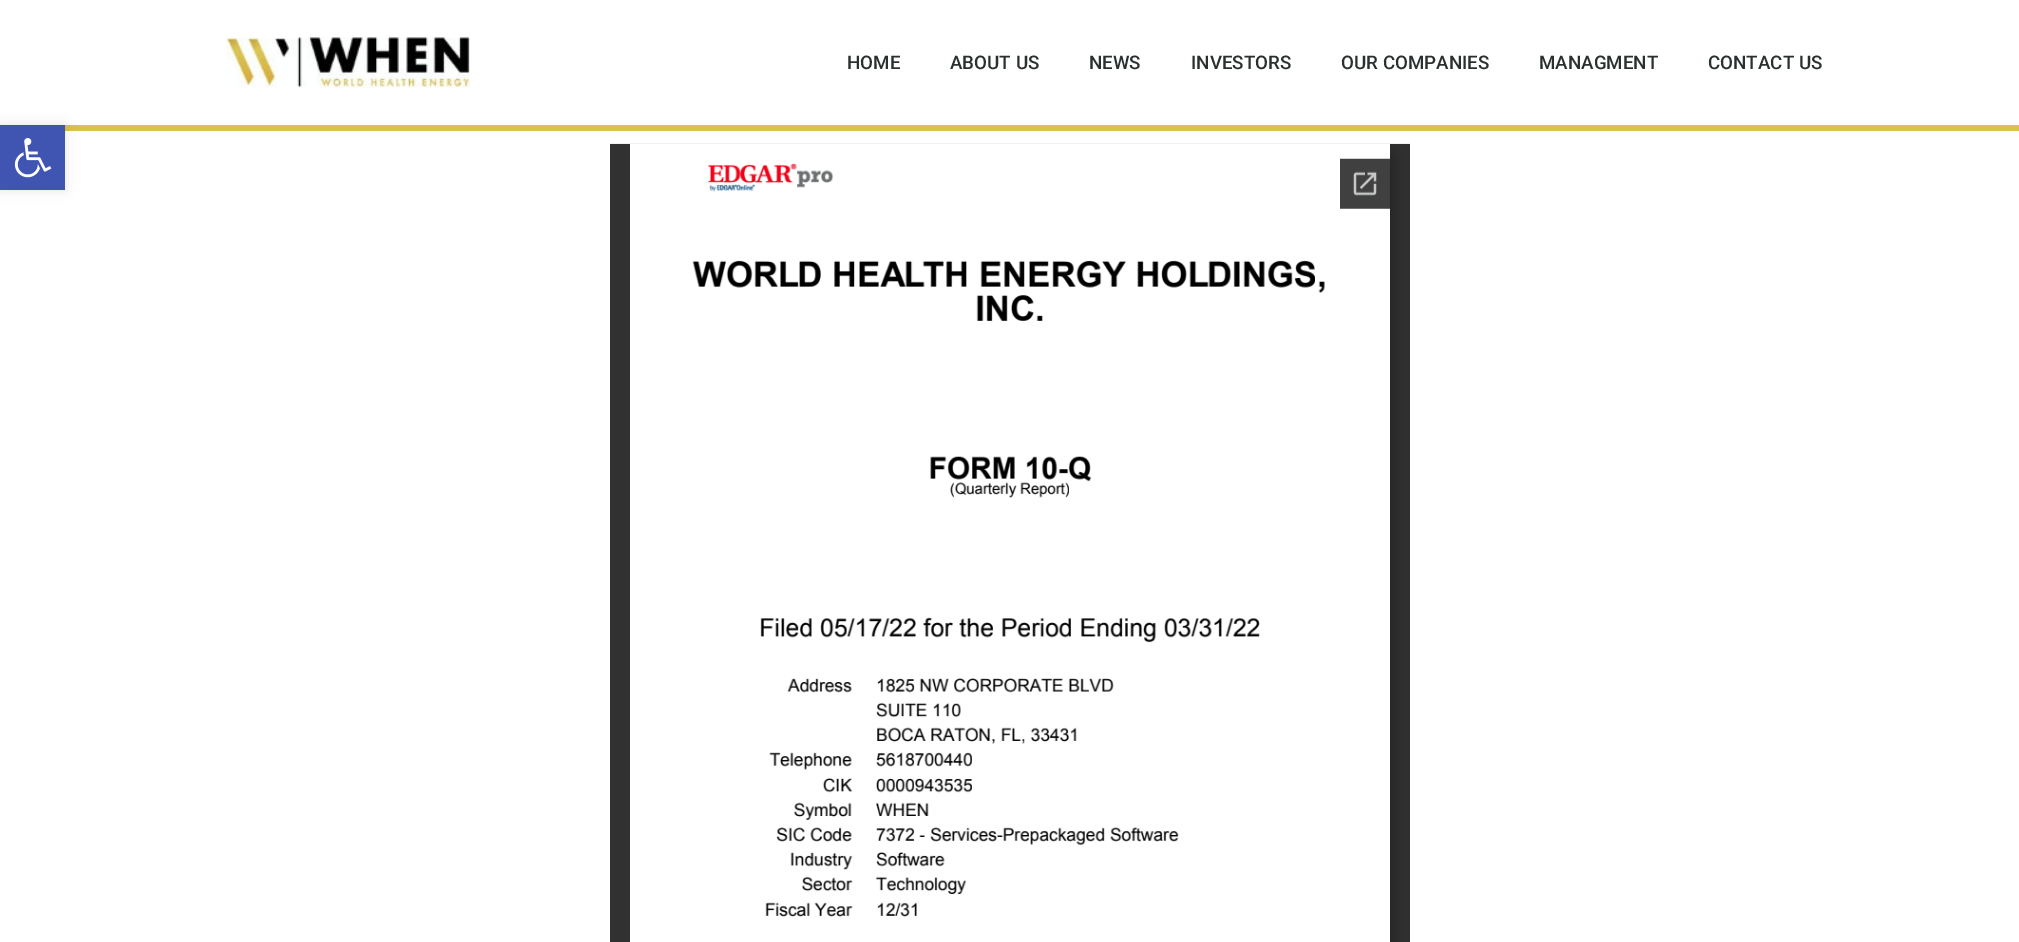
%!PS
<< /PageSize [2019 942] /PageUsesTransparency true >> setpagedevice
/C { dup -16 bitshift 255 div exch dup -8 bitshift 255 and 255 div exch 255 and 255 div setrgbcolor } def
/F { [ exch dup neg 0 0 3 -1 roll 0 0 ] selectfont } def
/T { moveto show } def
/R { rectfill } def
/A { dup .setfillconstantalpha .setstrokeconstantalpha } def
/Q { 5 dict begin { /r /h /w /y /x } { exch def } forall
  x r add y moveto x w add y 2 copy h add r arct x w add y h add x 1 index r arct
  x y h add x y r arct x y 2 copy exch w add exch r arct closepath end } def
/S { 12 dict begin { /a /b /q /h /w /y /x } { exch def } forall gsave /was 0 def
  9 -2 -9 { dup b mul 4 div /e exch def 1 sub .425 mul 2.718 exch exp 1 add a .99 .min exch div /now exch def
    1 1 now sub 1 was sub div sub A /was now def
    w h .min e 2 mul add 0 gt { x e sub y e sub w e 2 mul add h e 2 mul add
      q e add b .6 mul add w h .min 2 div e add .min 0 .max Q fill } if } for grestore end } def
/I { 5 dict begin { /h /w /y /x /name } { exch def } forall
  gsave x y translate w h scale
  w h 8 [w 0 0 h 0 0] name (r) file false 3 colorimage grestore end } def
0 .pushpdf14devicefilter
0 942 translate 1 -1 scale
4 setmiterlimit
16#FFFFFF C
0 0 2019 942 R
16#DBC24C C
65 125 1954 6 R
(1.rgb) 226 37 244 51 I
/Roboto-Medium 18.75 F
16#2A302F C
(HOME) 847 69 T
(ABOUT US) 950 69 T
(NEWS) 1089 69 T
(INVESTORS) 1191 69 T
(OUR COMPANIES) 1341 69 T
(MANAGMENT) 1539 69 T
(CONTACT US) 1708 69 T
(2.rgb) 610 143 800 799 I
16#000000 C
0 125 65 65 0 6 .1 S
16#4054B2 C
0 125 65 65 R
(3.rgb) 14 138 38 40 I
.poppdf14devicefilter showpage
